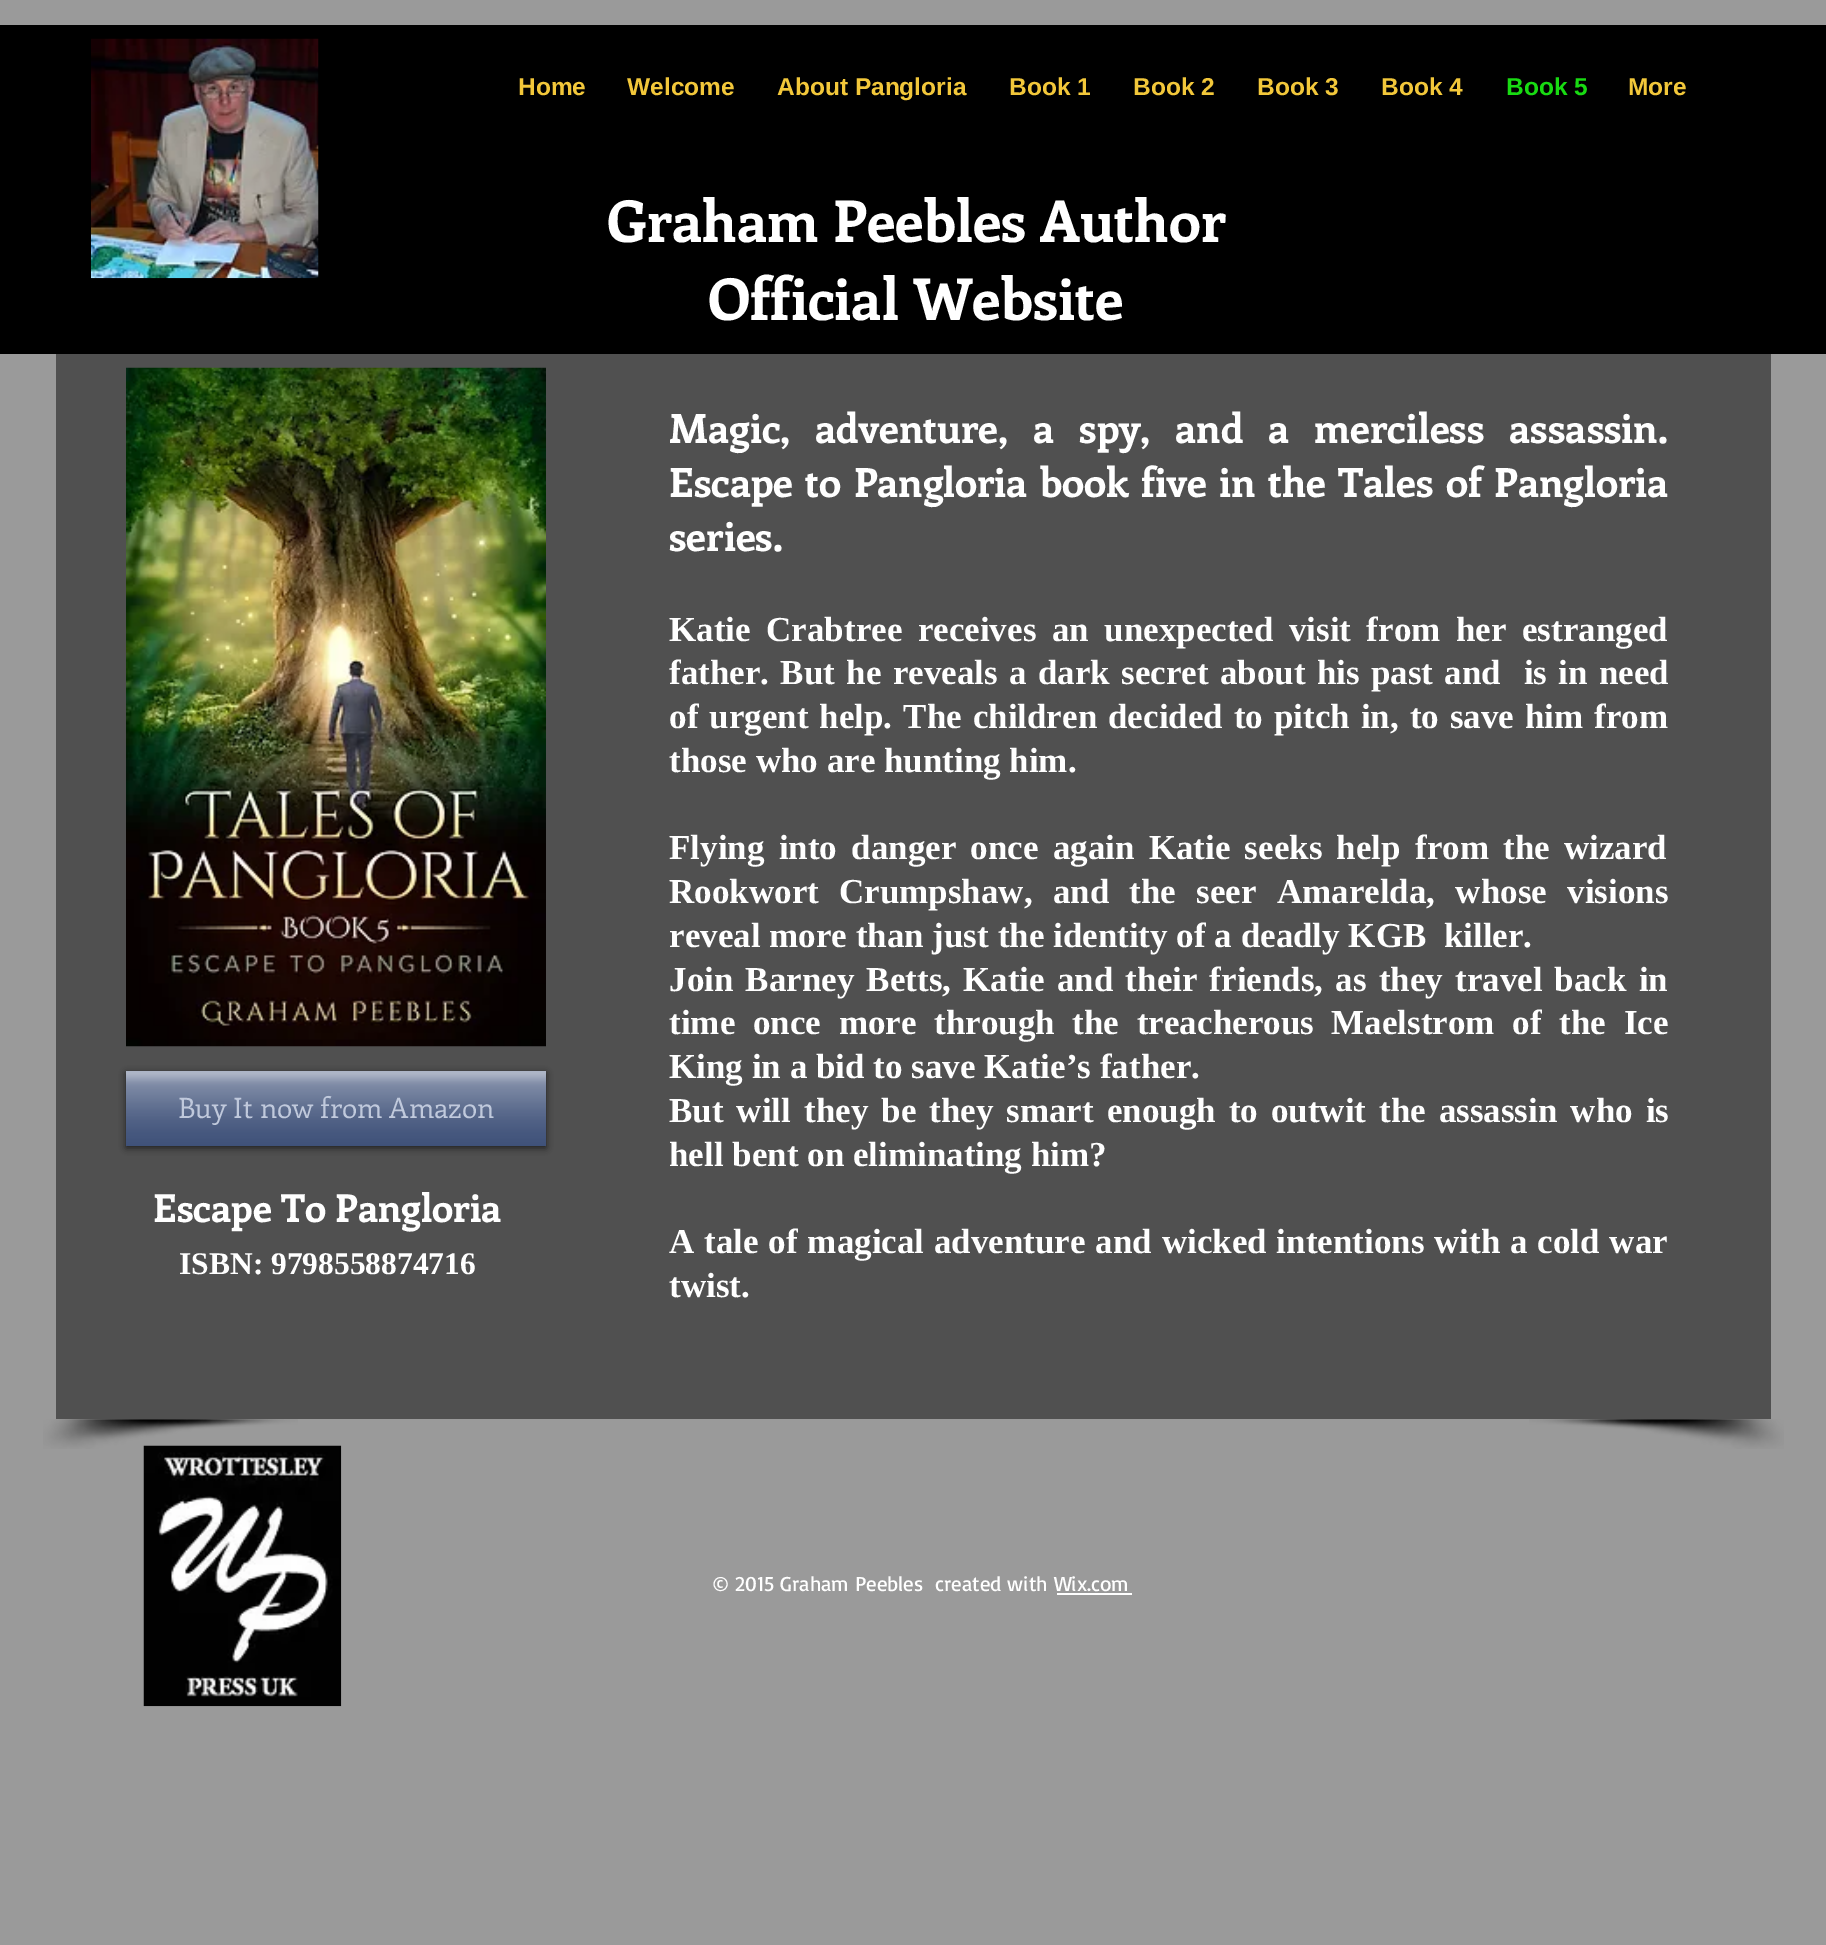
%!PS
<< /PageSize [1826 1945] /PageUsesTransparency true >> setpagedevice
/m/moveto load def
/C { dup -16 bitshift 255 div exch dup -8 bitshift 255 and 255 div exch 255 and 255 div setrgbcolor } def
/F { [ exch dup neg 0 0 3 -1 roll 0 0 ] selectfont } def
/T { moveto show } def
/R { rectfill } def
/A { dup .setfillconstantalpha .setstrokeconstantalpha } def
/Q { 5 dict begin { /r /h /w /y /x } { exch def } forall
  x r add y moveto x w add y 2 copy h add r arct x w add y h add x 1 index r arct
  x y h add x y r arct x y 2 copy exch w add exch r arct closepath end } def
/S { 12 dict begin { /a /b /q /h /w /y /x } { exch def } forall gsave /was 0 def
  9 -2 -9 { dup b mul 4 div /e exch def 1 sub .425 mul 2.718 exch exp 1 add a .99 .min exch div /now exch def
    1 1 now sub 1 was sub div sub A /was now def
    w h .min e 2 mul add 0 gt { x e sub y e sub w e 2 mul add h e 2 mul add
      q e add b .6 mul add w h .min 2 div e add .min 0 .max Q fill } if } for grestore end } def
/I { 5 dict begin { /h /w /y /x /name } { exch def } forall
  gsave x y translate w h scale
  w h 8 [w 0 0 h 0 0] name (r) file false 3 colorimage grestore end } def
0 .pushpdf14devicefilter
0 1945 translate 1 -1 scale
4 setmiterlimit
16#9A9A9A C
0 0 1826 1945 R
16#000000 C
0 25 1826 329 R
(1.rgb) 91 38 228 241 I
/LiberationSans-Bold 24.5 F
16#F2C73A C
(Home) 518 95 T
(Welcome) 627 95 T
(About Pangloria) 777 95 T
(Book 1) 1009 95 T
(Book 2) 1133 95 T
(Book 3) 1257 95 T
(Book 4) 1381 95 T
16#18DB12 C
(Book 5) 1506 95 T
16#F2C73A C
(More) 1628 95 T
/Enriqueta-Bold 57.75 F
16#FFFFFF C
(Graham Peebles Author) 607 242 T
(Official Website) 708 320 T
16#505050 C
56 354 1715 1065 R
(2.rgb) 43 1419 255 30 I
(3.rgb) 1529 1419 255 30 I
(4.rgb) 126 367 420 680 I
/Enriqueta-Bold 40.25 F
16#FFFFFF C
669 443 m 15.25 0 32 (Magic, adventure, a spy, and a merciless assassin.) widthshow
669 497 m 2.6 0 32 (Escape to Pangloria book five in the Tales of Pangloria) widthshow
(series.) 669 551 T
/LiberationSerif-Bold 35 F
669 641 m 6.75 0 32 (Katie Crabtree receives an unexpected visit from her estranged) widthshow
669 684 m 2.6 0 32 (father. But he reveals a dark secret about his past and  is in need) widthshow
669 728 m 2.25 0 32 (of urgent help. The children decided to pitch in, to save him from) widthshow
(those who are hunting him.) 669 772 T
669 859 m 5.5 0 32 (Flying into danger once again Katie seeks help from the wizard) widthshow
669 903 m 11.5 0 32 (Rookwort Crumpshaw, and the seer Amarelda, whose visions) widthshow
(reveal more than just the identity of a deadly KGB  killer.) 669 947 T
669 991 m 3.4 0 32 (Join Barney Betts, Katie and their friends, as they travel back in) widthshow
669 1034 m 9 0 32 (time once more through the treacherous Maelstrom of the Ice) widthshow
(King in a bid to save Katie’s father.) 669 1078 T
669 1122 m 4.25 0 32 (But will they be they smart enough to outwit the assassin who is) widthshow
(hell bent on eliminating him?) 669 1166 T
669 1253 m 1.1 0 32 (A tale of magical adventure and wicked intentions with a cold war) widthshow
(twist.) 669 1297 T
16#000000 C
126 1073 420 75 0 3.5 .6 S
16#394C75 C
126 1071 420 75 R
(5.rgb) 126 1071 420 75 I
/Enriqueta-Regular 28 F
16#C0C9DC C
(Buy It now from Amazon) 178 1118 T
/Enriqueta-Bold 38.5 F
16#FFFFFF C
(Escape To Pangloria) 153 1222 T
/LiberationSerif-Bold 31.5 F
(ISBN: 9798558874716) 179 1274 T
(6.rgb) 143 1445 199 262 I
/Basic-Regular 21 F
(© 2015 Graham Peebles  created with Wix.com) 712 1591 T
1057 1593 75 2 R
.poppdf14devicefilter showpage
